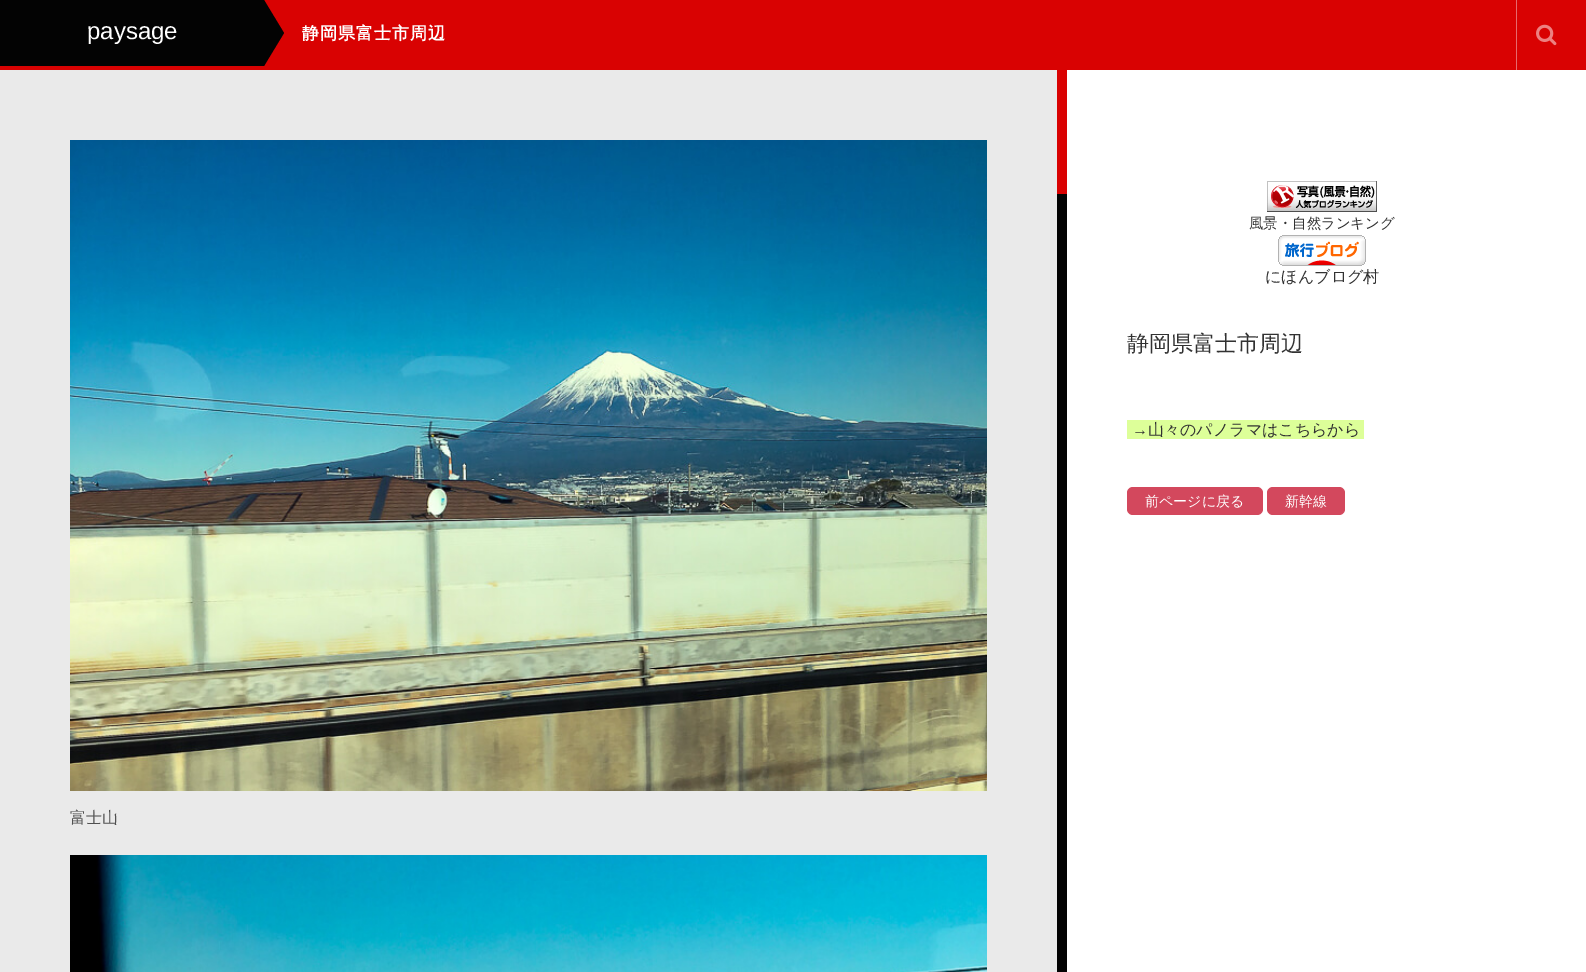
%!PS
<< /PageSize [1586 972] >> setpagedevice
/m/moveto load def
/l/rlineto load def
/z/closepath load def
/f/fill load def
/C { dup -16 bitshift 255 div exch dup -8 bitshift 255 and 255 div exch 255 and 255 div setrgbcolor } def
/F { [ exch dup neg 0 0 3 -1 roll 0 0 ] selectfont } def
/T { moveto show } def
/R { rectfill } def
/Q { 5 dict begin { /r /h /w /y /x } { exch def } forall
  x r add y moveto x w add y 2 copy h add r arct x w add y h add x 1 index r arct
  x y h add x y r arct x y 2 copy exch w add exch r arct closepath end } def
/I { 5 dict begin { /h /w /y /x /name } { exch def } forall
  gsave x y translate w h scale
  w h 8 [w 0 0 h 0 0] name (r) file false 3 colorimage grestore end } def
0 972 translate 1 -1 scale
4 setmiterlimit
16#EAEAEA C
0 0 1586 972 R
16#D90202 C
0 0 1586 70 R
16#030303 C
0 0 264 66 R
/LiberationSans-Regular 24 F
16#FFFFFF C
(paysage) 87 39 T
16#030303 C
264 66 m 0 -66 l 20 33 l z f
/WenQuanYiZenHei-Bold 17 F
16#FFFFFF C
302 39 m 1 0 (静岡県富士市周辺) ashow
16#E56A6D C
1516 0 1 70 R
(1.rgb) 1536 24 21 22 I
16#FFFFFF C
1067 70 519 902 R
16#D90202 C
1057 70 10 124 R
16#030303 C
1057 194 10 778 R
(2.rgb) 1267 181 110 31 I
/WenQuanYiZenHei-Medium 14.4 F
16#323232 C
(風景・自然ランキング) 1249 228 T
(3.rgb) 1278 235 88 31 I
/WenQuanYiZenHei-Medium 16 F
(にほんブログ村) 1265 282 T
/WenQuanYiZenHei-Medium 22 F
(静岡県富士市周辺) 1127 351 T
16#DDFF99 C
1127 420 237 19 R
/LiberationSans-Regular 16 F
16#323232 C
(→) 1132 435 T
/WenQuanYiZenHei-Medium 16 F
(山々のパノラマはこちらから) 1148 435 T
16#D3485D C
1127 487 136 28 6 Q f
/WenQuanYiZenHei-Medium 14 F
16#FFFFFF C
(前ページに戻る) 1145 506 T
16#D3485D C
1267 487 78 28 6 Q f
16#FFFFFF C
(新幹線) 1285 506 T
(4.rgb) 70 140 917 651 I
/WenQuanYiZenHei-Medium 16 F
16#505050 C
(富士山) 70 823 T
(5.rgb) 70 855 917 117 I
showpage
